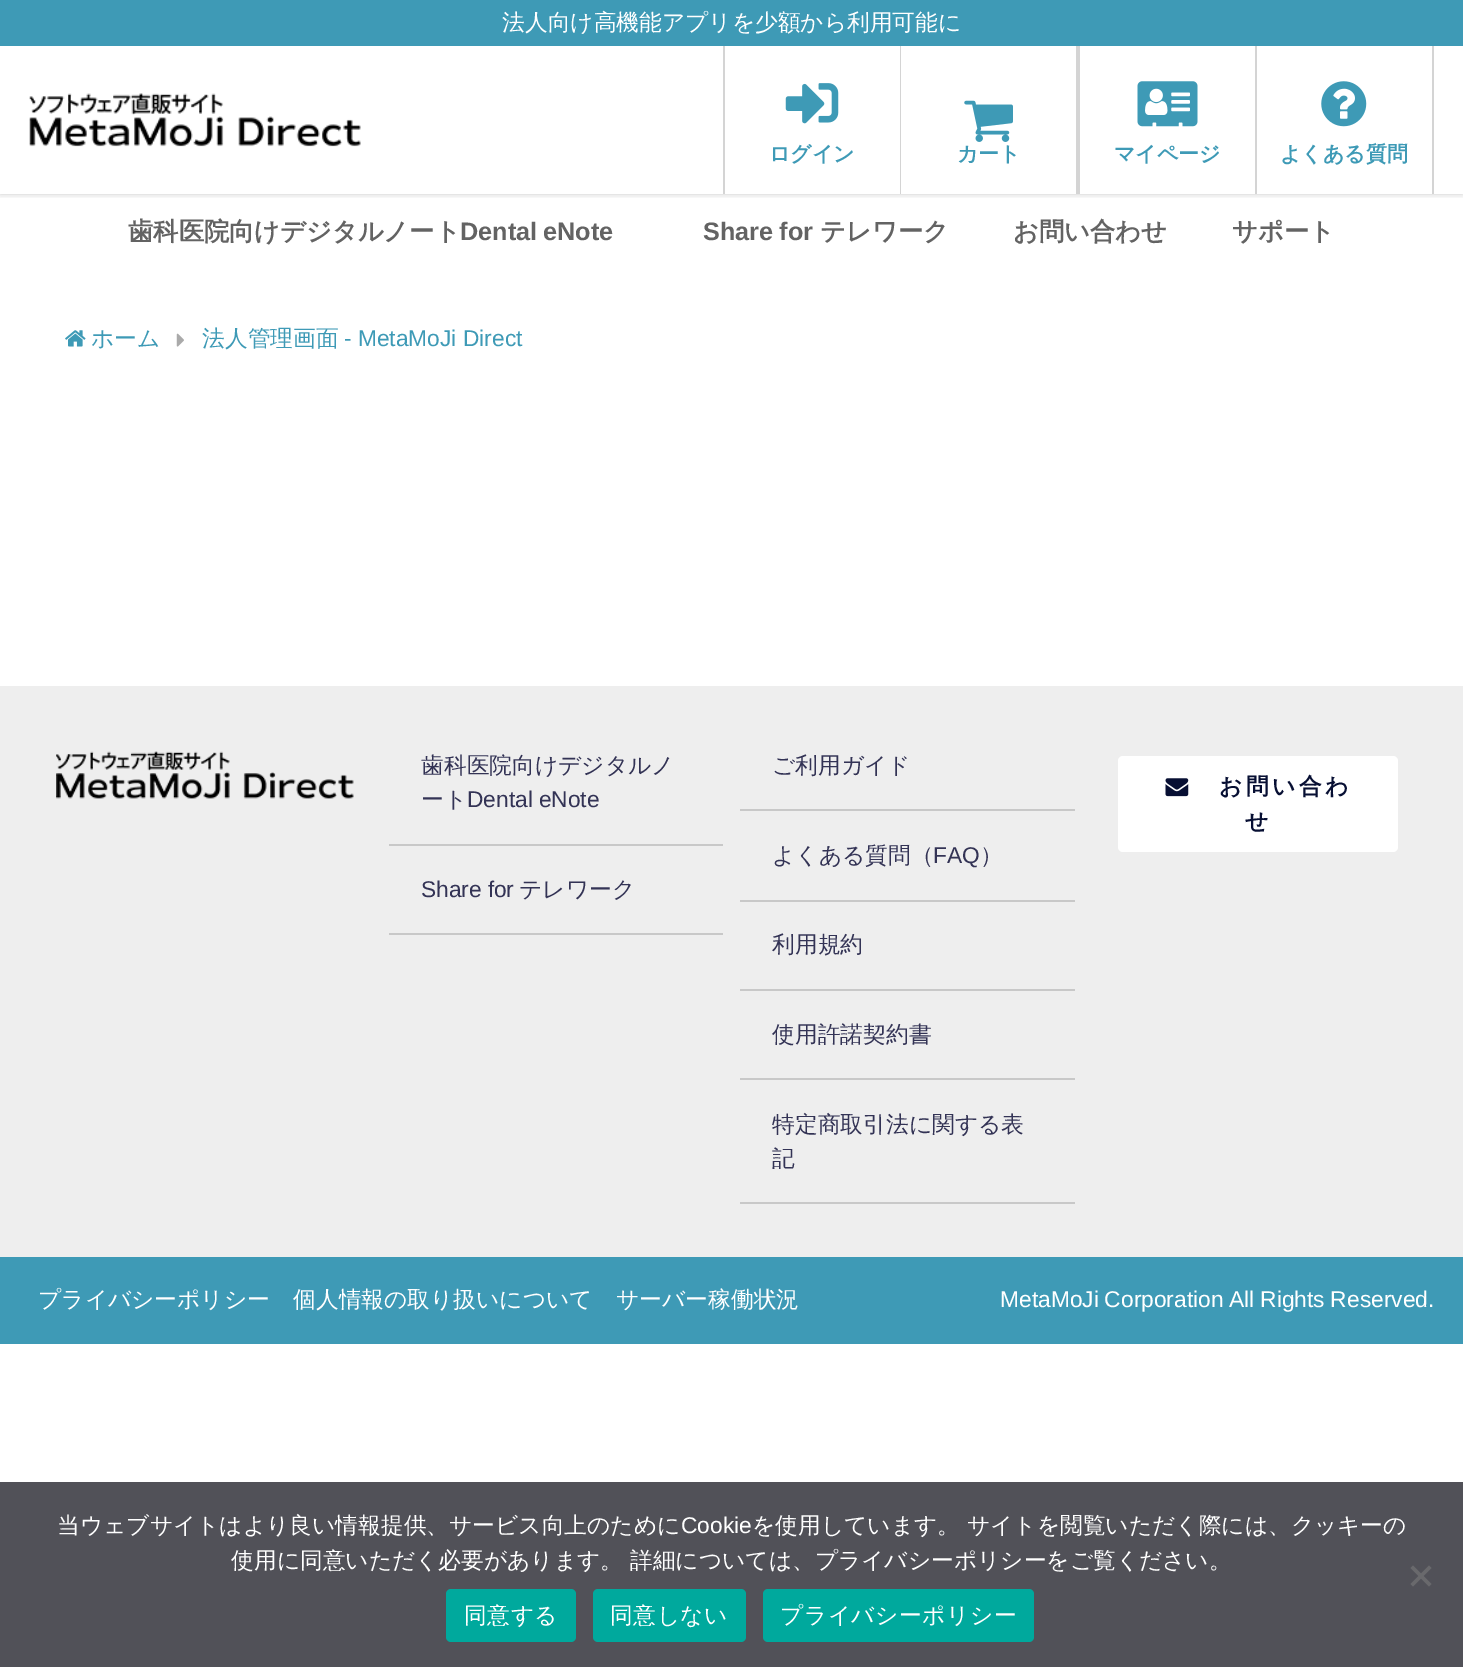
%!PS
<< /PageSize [1463 1667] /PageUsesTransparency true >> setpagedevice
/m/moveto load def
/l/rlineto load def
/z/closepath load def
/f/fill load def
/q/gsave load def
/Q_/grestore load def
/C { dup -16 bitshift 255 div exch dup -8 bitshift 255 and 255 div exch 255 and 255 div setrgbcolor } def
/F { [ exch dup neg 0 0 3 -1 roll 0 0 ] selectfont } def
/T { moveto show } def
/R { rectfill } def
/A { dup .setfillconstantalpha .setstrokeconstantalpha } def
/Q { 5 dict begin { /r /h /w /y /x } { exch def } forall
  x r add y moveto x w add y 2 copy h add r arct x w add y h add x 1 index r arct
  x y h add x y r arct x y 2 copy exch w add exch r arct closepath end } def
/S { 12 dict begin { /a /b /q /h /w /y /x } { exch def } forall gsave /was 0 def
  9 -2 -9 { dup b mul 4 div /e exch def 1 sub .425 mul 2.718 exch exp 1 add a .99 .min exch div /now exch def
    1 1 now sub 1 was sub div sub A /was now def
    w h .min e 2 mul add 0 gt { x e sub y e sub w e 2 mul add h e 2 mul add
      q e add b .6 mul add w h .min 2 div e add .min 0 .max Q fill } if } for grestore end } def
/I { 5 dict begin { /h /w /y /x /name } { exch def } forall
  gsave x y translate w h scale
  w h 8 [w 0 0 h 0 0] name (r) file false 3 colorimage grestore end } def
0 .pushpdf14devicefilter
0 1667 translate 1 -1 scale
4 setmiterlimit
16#FFFFFF C
0 0 1463 1667 R
q
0 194 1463 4 rectclip
16#000000 C
0 0 1463 194 0 3.5 .2 S
Q_
16#3E9AB6 C
0 0 1463 46 R
/WenQuanYiZenHei-Medium 22.75 F
16#FFFFFF C
(法人向け高機能アプリを少額から利用可能に) 502 30 T
(1.rgb) 29 93 332 54 I
16#D4D4D4 C
723 46 2 148 R
(2.rgb) 785 83 54 41 I
/WenQuanYiZenHei-Bold 21 F
16#3E9AB6 C
(ログイン) 769 161 T
16#D4D4D4 C
1076 46 4 148 R
900 46 1 148 R
(3.rgb) 964 100 49 42 I
16#3E9AB6 C
(カート) 957 161 T
(4.rgb) 1137 81 61 46 I
(マイページ) 1114 161 T
16#D4D4D4 C
1432 46 2 148 R
1255 46 2 148 R
(5.rgb) 1321 81 46 46 I
16#3E9AB6 C
(よくある質問) 1280 161 T
/WenQuanYiZenHei-Bold 25.25 F
16#636363 C
(歯科医院向けデジタルノート) 128 240 T
/LiberationSans-Bold 25.25 F
460 240 m -1 0 32 (Dental eNote) widthshow
703 240 m -1 0 32 (Share for) widthshow
/WenQuanYiZenHei-Bold 25.25 F
(テレワーク) 820 240 T
(お問い合わせ) 1013 240 T
(サポート) 1232 240 T
(6.rgb) 65 330 21 17 I
/WenQuanYiZenHei-Medium 22.75 F
16#3E9AB6 C
(ホーム) 91 346 T
(7.rgb) 176 333 8 14 I
(法人管理画面) 202 346 T
/LiberationSans-Regular 22.75 F
(- MetaMoJi Direct) 344 346 T
16#EEEEEE C
0 686 1463 571 R
(8.rgb) 56 751 298 48 I
16#C8C8C8 C
389 844 334 2 R
/WenQuanYiZenHei-Medium 22.75 F
16#333355 C
(歯科医院向けデジタルノ) 421 773 T
(ート) 421 807 T
/LiberationSans-Regular 22.75 F
467 807 m -.5 0 32 (Dental eNote) widthshow
16#C8C8C8 C
389 933 334 2 R
16#333355 C
421 897 m -.5 0 32 (Share for) widthshow
/WenQuanYiZenHei-Medium 22.75 F
(テレワーク) 519 897 T
16#C8C8C8 C
740 809 335 2 R
16#333355 C
(ご利用ガイド) 772 773 T
16#C8C8C8 C
740 900 335 2 R
16#333355 C
(よくある質問（) 772 863 T
/LiberationSans-Regular 22.75 F
(FAQ) 933 863 T
/WenQuanYiZenHei-Medium 22.75 F
(）) 980 863 T
16#C8C8C8 C
740 989 335 2 R
16#333355 C
(利用規約) 772 952 T
16#C8C8C8 C
740 1078 335 2 R
16#333355 C
(使用許諾契約書) 772 1042 T
16#C8C8C8 C
740 1202 335 2 R
16#333355 C
(特定商取引法に関する表) 772 1132 T
(記) 772 1166 T
16#FFFFFF C
1118 756 280 96 5 Q f
(9.rgb) 1165 778 24 19 I
/WenQuanYiZenHei-Bold 22.75 F
16#070F33 C
1219 794 m 3.5 0 (お問い合わ) ashow
1245 829 m 3.5 0 (せ) ashow
16#3E9AB6 C
0 1257 1463 87 R
/WenQuanYiZenHei-Medium 22.75 F
16#FFFFFF C
(プライバシーポリシー) 38 1307 T
(個人情報の取り扱いについて) 293 1307 T
(サーバー稼働状況) 616 1307 T
/LiberationSans-Regular 22.75 F
1000 1307 m -.5 0 32 (MetaMoJi Corporation All Rights Reserved.) widthshow
16#515158 C
0 1482 1463 185 R
/WenQuanYiZenHei-Medium 22.75 F
16#FFFFFF C
(当ウェブサイトはより良い情報提供、サービス向上のために) 57 1533 T
/LiberationSans-Regular 22.75 F
(Cookie) 681 1533 T
/WenQuanYiZenHei-Medium 22.75 F
(を使用しています。 サイトを閲覧いただく際には、クッキーの) 752 1533 T
(使用に同意いただく必要があります。 詳細については、プライバシーポリシーをご覧ください。) 231 1568 T
16#69696C C
1429 1565.5 m 2.5 2.5 l -18.5 18.5 l -2.5 -2.5 l z f
1410.5 1568 m 2.5 -2.5 l 18.5 18.5 l -2.5 2.5 l z f
16#00A99D C
446 1589 130 53 5 Q f
16#FFFFFF C
464 1623 m .5 0 (同意する) ashow
16#00A99D C
593 1589 153 53 5 Q f
16#FFFFFF C
610 1623 m .5 0 (同意しない) ashow
16#00A99D C
763 1589 271 53 5 Q f
16#FFFFFF C
780 1623 m .5 0 (プライバシーポリシー) ashow
.poppdf14devicefilter showpage
